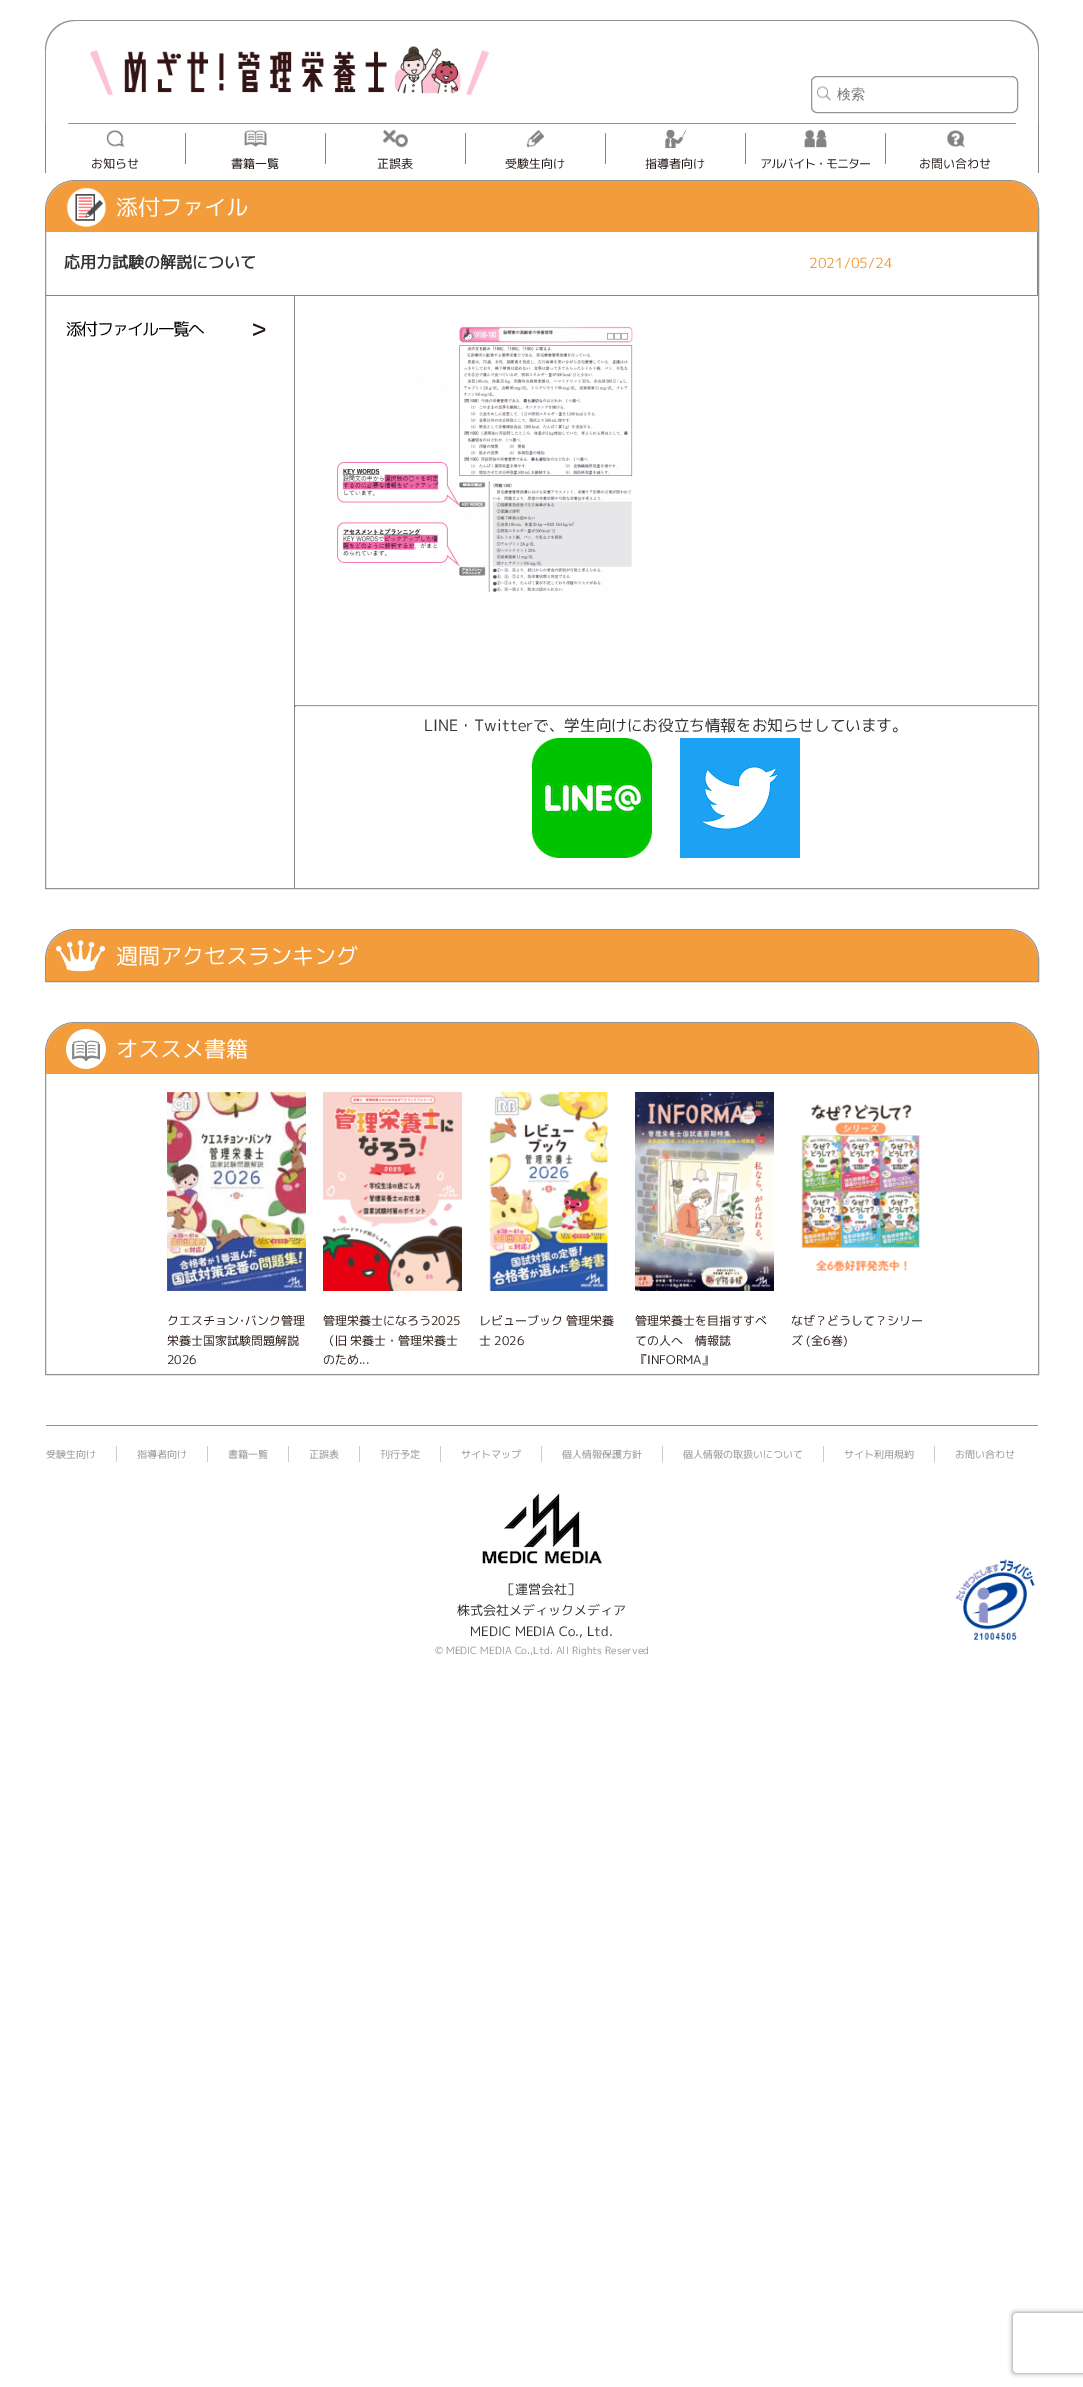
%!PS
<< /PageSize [1083 2387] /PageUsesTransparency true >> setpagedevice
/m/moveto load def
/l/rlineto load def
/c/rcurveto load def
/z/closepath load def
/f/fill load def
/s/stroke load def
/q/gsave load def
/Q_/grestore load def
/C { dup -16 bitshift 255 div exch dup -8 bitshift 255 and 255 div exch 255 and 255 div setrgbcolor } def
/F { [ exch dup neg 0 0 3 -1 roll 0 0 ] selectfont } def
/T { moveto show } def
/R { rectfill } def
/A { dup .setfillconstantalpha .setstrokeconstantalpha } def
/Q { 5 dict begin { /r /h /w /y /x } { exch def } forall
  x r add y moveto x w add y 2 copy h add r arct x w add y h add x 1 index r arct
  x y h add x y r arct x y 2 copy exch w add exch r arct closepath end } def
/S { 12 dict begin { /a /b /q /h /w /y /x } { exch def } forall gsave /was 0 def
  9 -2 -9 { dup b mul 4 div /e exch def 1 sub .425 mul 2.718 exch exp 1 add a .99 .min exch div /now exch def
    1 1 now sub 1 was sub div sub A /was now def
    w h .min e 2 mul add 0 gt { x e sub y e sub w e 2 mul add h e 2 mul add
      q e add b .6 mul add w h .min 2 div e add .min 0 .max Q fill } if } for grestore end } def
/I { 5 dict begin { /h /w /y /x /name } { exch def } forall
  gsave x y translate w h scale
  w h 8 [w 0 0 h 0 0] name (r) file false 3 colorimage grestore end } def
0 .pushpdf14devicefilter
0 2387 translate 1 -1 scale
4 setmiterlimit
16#FFFFFF C
0 0 1083 2387 R
16#949494 C
75 20 m 934 0 l 17 0 30 13 30 30 c 0 74 l -994 0 l 0 -74 l 0 -17 13 -30 30 -30 c z 75 21 m 934 0 l 16 0 29 13 29 29 c 0 74 l -992 0 l 0 -74 l 0 -16 13 -29 29 -29 c z eofill
68 123 948 1 R
(1.rgb) 90 46 399 50 I
16#838383 C
1038 124 1 49 R
45 124 1 49 R
(2.rgb) 817 86 14 15 I
16#949494 C
811.5 76.5 206 36 5.5 Q s
/WenQuanYiZenHei-Medium 14 F
16#757575 C
(検索) 837 99 T
16#838383 C
185 133 1 31 R
(3.rgb) 106 130 19 18 I
/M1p-Regular 12 F
16#231815 C
(お知らせ) 91 168 T
16#838383 C
325 133 1 31 R
(4.rgb) 244 130 23 17 I
16#231815 C
(書籍一覧) 231 168 T
16#838383 C
465 133 1 31 R
(5.rgb) 383 129 25 19 I
16#231815 C
(正誤表) 377 168 T
16#838383 C
605 133 1 31 R
(6.rgb) 526 129 19 19 I
16#231815 C
(受験生向け) 505 168 T
16#838383 C
745 133 1 31 R
(7.rgb) 665 129 22 19 I
16#231815 C
(指導者向け) 645 168 T
16#838383 C
885 133 1 31 R
(8.rgb) 804 129 23 19 I
16#231815 C
760 168 m -1 0 (アルバイト・モニター) ashow
(9.rgb) 947 130 18 18 I
(お問い合わせ) 919 168 T
16#949494 C
75 180.5 m 934 0 l 16.5 0 29.5 13 29.5 29.5 c 0 678.5 l -993 0 l 0 -678.5 l 0 -16.5 13 -29.5 29.5 -29.5 c z s
16#F29C3C C
76 181 m 932 0 l 16.5 0 30 13.5 30 30 c 0 21 l -992 0 l 0 -21 l 0 -16.5 13.5 -30 30 -30 c z f
(10.rgb) 66 187 40 40 I
/M1p-Regular 22 F
16#FFFFFF C
(添付ファイル) 116 215 T
16#868686 C
46 295 992 1 R
/M1p-Bold 16 F
16#333333 C
(応用力試験の解説について) 64 268 T
16#868686 C
1037 232 1 63 R
/M1p-Regular 14 F
16#F29C3C C
(2021/05/24) 809 268 T
16#868686 C
294 296 1 592 R
(11.rgb) 253 323 13 13 I
/M1p-Regular 16.75 F
16#000000 C
66 335 m -1.5 0 (添付ファイル一覧へ) ashow
(12.rgb) 337 326 296 266 I
16#9F9F9F C
295 705 743 1 R
16#EEEEEE C
1037 705 1 2 R
295 706 743 1 R
16#9F9F9F C
295 705 1 2 R
/M1p-Regular 15.6 F
16#333333 C
(LINE・Twitterで、学生向けにお役立ち情報をお知らせしています。) 424 731 T
(13.rgb) 532 738 120 120 I
(14.rgb) 680 738 120 120 I
16#949494 C
75 929.5 m 934 0 l 16.5 0 29.5 13 29.5 29.5 c 0 22.5 l -993 0 l 0 -22.5 l 0 -16.5 13 -29.5 29.5 -29.5 c z s
16#F29C3C C
76 930 m 932 0 l 16.5 0 30 13.5 30 30 c 0 21 l -992 0 l 0 -21 l 0 -16.5 13.5 -30 30 -30 c z f
(15.rgb) 56 940 50 32 I
/M1p-Regular 22 F
16#FFFFFF C
(週間アクセスランキング) 116 964 T
16#949494 C
75 1022.5 m 934 0 l 16.5 0 29.5 13 29.5 29.5 c 0 322.5 l -993 0 l 0 -322.5 l 0 -16.5 13 -29.5 29.5 -29.5 c z s
16#F29C3C C
76 1023 m 932 0 l 16.5 0 30 13.5 30 30 c 0 21 l -992 0 l 0 -21 l 0 -16.5 13.5 -30 30 -30 c z f
(16.rgb) 66 1029 40 40 I
16#FFFFFF C
(オススメ書籍) 116 1057 T
(17.rgb) 167 1092 139 199 I
/M1p-Regular 12 F
16#2E1F1A C
(クエスチョン･バンク管理) 167 1325 T
(栄養士国家試験問題解説) 167 1345 T
(2026) 167 1364 T
(18.rgb) 323 1092 139 199 I
(管理栄養士になろう2025) 323 1325 T
(（旧 栄養士・管理栄養士) 323 1345 T
(のため...) 323 1364 T
(19.rgb) 489 1092 120 199 I
(レビューブック 管理栄養) 479 1325 T
(士 2026) 479 1345 T
(20.rgb) 635 1092 139 199 I
(管理栄養士を目指すすべ) 635 1325 T
(ての人へ　情報誌) 635 1345 T
(『INFORMA』) 635 1364 T
(21.rgb) 801 1103 119 169 I
(なぜ？どうして？シリー) 791 1325 T
(ズ \(全6巻\)) 791 1345 T
16#949494 C
46 1425 992 1 R
16#CCCCCC C
116 1446 1 16 R
/M1p-Regular 10 F
16#949494 C
(受験生向け) 46 1458 T
16#CCCCCC C
207 1446 1 16 R
16#949494 C
(指導者向け) 137 1458 T
16#CCCCCC C
288 1446 1 16 R
16#949494 C
(書籍一覧) 228 1458 T
16#CCCCCC C
359 1446 1 16 R
16#949494 C
(正誤表) 309 1458 T
16#CCCCCC C
440 1446 1 16 R
16#949494 C
(刊行予定) 380 1458 T
16#CCCCCC C
541 1446 1 16 R
16#949494 C
(サイトマップ) 461 1458 T
16#CCCCCC C
662 1446 1 16 R
16#949494 C
(個人情報保護方針) 562 1458 T
16#CCCCCC C
823 1446 1 16 R
16#949494 C
(個人情報の取扱いについて) 683 1458 T
16#CCCCCC C
934 1446 1 16 R
16#949494 C
(サイト利用規約) 844 1458 T
(お問い合わせ) 955 1458 T
(22.rgb) 482 1493 120 71 I
/M1p-Regular 13 F
16#333333 C
(［運営会社］) 502 1594 T
(株式会社メディックメディア) 457 1615 T
(MEDIC MEDIA Co., Ltd.) 470 1636 T
(23.rgb) 955 1559 80 82 I
/M1p-Regular 10 F
16#949494 C
(© MEDIC MEDIA Co.,Ltd. All Rights Reserved) 435 1654 T
q
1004 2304 m 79 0 l 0 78 l -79 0 l z 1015 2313 m 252 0 l 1 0 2 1 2 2 c 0 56 l 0 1 -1 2 -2 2 c -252 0 l -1 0 -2 -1 -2 -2 c 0 -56 l 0 -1 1 -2 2 -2 c z eoclip newpath
16#808080 C
1013 2313 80 60 2 2.5 1 S
Q_
.poppdf14devicefilter showpage
